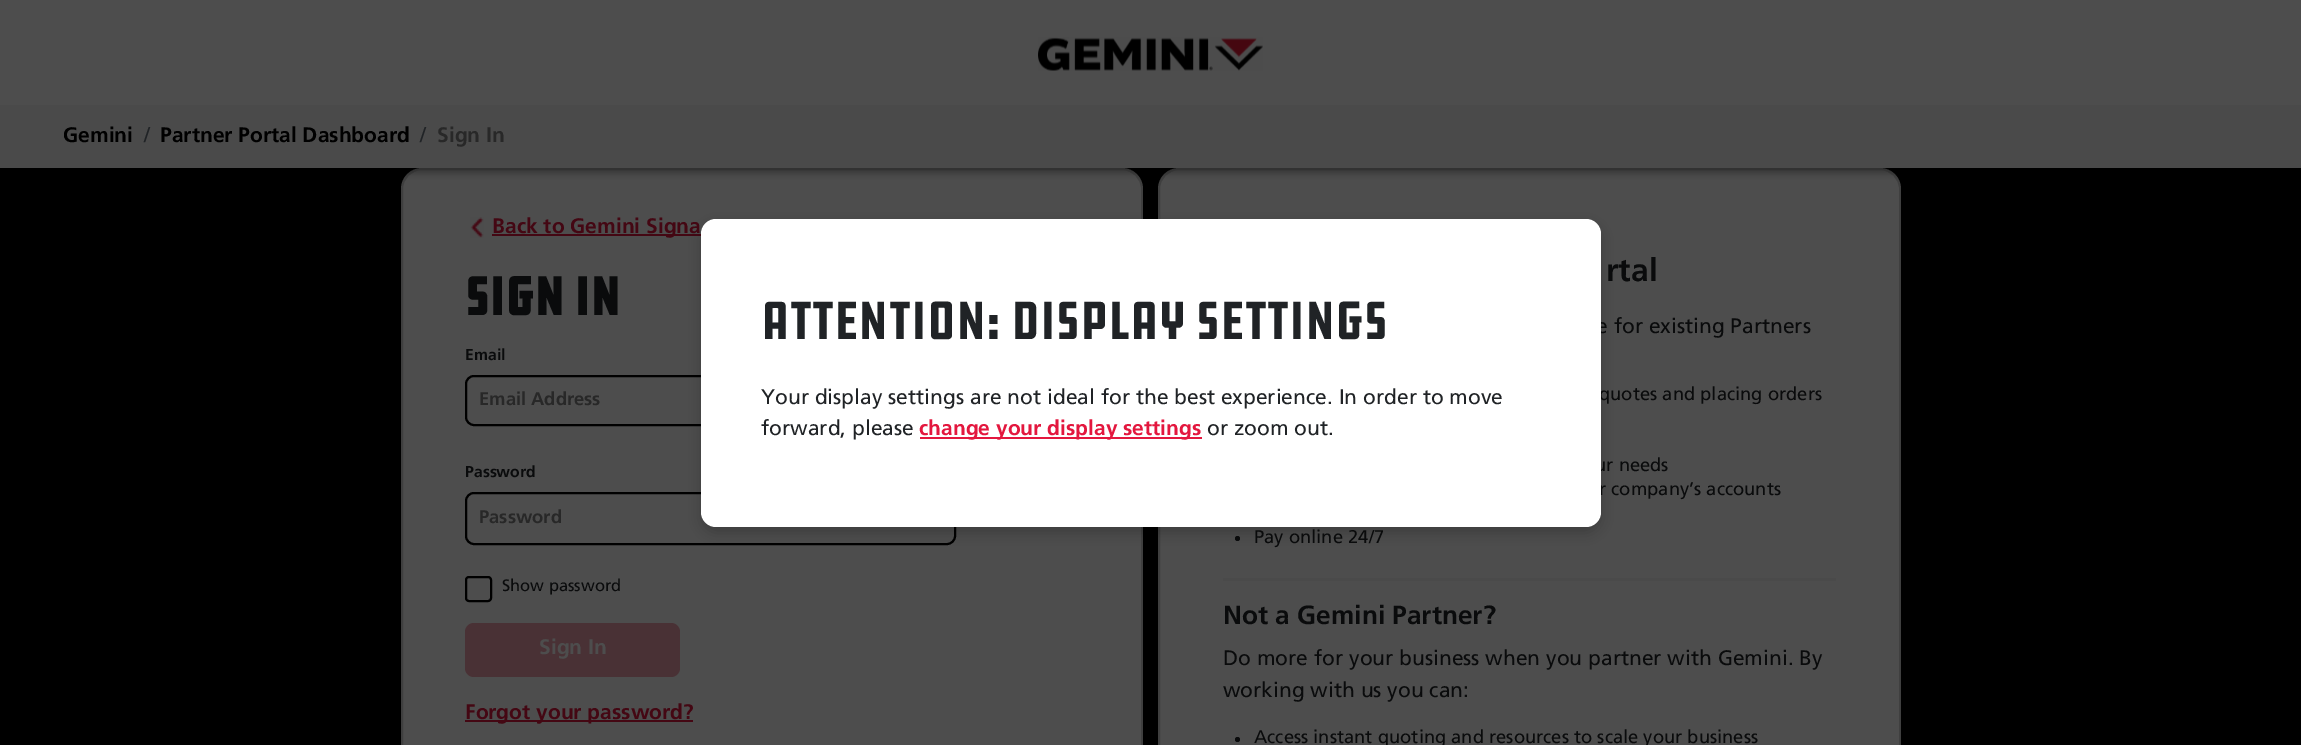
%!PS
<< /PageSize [2301 745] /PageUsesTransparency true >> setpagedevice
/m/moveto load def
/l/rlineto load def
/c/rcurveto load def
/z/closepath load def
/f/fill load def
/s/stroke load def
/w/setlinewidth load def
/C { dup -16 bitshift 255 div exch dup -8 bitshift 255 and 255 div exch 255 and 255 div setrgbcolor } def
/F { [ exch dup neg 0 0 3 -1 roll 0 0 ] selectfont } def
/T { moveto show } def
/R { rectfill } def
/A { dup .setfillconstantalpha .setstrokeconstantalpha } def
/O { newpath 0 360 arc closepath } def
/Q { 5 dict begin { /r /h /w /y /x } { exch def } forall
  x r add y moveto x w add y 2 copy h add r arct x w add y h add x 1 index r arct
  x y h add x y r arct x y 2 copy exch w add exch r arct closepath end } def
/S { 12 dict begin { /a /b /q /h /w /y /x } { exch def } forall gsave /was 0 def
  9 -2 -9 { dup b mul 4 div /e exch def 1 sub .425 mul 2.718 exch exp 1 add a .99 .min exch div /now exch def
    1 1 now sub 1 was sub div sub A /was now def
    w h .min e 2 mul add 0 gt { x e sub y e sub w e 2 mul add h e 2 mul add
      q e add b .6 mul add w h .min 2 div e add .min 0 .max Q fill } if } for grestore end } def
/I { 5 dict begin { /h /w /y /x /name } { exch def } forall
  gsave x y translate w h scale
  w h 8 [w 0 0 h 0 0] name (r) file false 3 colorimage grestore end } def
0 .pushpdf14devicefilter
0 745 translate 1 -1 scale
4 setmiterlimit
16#4D4D4D C
0 0 2301 745 R
(1.rgb) 1038 37 225 34 I
16#000000 C
0 168 2301 577 R
16#4D4D4D C
422 168 m 700 0 l 11.5 0 21 9.5 21 21 c 0 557 l -742 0 l 0 -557 l 0 -11.5 9.5 -21 21 -21 c z f
0.18 A
16#000000 C
2 w
402 169 740 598 20 Q s
1 A
16#4D4D4D C
1179 168 m 701 0 l 11.5 0 21 9.5 21 21 c 0 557 l -743 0 l 0 -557 l 0 -11.5 9.5 -21 21 -21 c z f
0.18 A
16#000000 C
1159 169 741 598 20 Q s
1 A
0 111 2301 63 0 3 .25 S
16#4A4A4A C
0 105 2301 63 R
/Frutiger-Bold 21 F
16#000000 C
(Gemini) 63 142 T
/Frutiger-Regular 21 F
16#202326 C
(/) 144 142 T
/Frutiger-Bold 21 F
16#000000 C
(Partner Portal Dashboard) 160 142 T
/Frutiger-Regular 21 F
16#202326 C
(/) 420 142 T
/Frutiger-Bold 21 F
16#282828 C
(Sign In) 437 142 T
(2.rgb) 470 217 14 21 I
16#440713 C
492 234 209 2 R
(Back to Gemini Signa) 492 233 T
/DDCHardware-Bold 55.1 F
16#0A0B0C C
(Sign In) 465 315 T
/Frutiger-Bold 15.75 F
(Email) 465 360 T
16#000000 C
466 376 489 49 8 Q s
/Frutiger-Bold 18.4 F
16#282828 C
(Email Address) 479 405 T
/Frutiger-Bold 15.75 F
16#0A0B0C C
(Password) 465 477 T
16#000000 C
466 493 489 51 8 Q s
/Frutiger-Bold 18.4 F
16#282828 C
(Password) 479 523 T
16#000000 C
466 577 25 24 3 Q s
/Frutiger-Regular 16.5 F
16#0A0B0C C
(Show password) 502 591 T
16#493135 C
465 623 215 54 9 Q f
/Frutiger-Bold 21 F
16#4D4D4D C
(Sign In) 539 654 T
16#440713 C
465 720 228 2 R
(Forgot your password?) 465 719 T
/Frutiger-Bold 32 F
16#0A0B0C C
(rtal) 1606 281 T
16#4A4A4A C
1223 578 613 3 R
/Frutiger-Regular 21 F
16#0A0B0C C
(e for existing Partners) 1596 333 T
/Frutiger-Regular 18.4 F
(quotes and placing orders) 1599 400 T
(ur needs) 1595 471 T
(r company’s accounts) 1599 495 T
1237.5 538.5 2.5 O f
(Pay online 24/7) 1254 543 T
/Frutiger-Bold 26.25 F
(Not a Gemini Partner?) 1223 624 T
/Frutiger-Regular 21 F
(Do more for your business when you partner with Gemini. By) 1223 665 T
(working with us you can:) 1223 697 T
1237.5 739.5 2.5 O f
/Frutiger-Regular 18.4 F
(Access instant quoting and resources to scale your business) 1254 743 T
16#000000 C
701 225 900 308 15 6 .2 S
16#FFFFFF C
701 219 900 308 15 Q f
/DDCHardware-Regular 55.1 F
16#202326 C
(Attention: Display Settings) 761 339 T
/Frutiger-Regular 21 F
(Your display settings are not ideal for the best experience. In order to move) 761 404 T
(forward, please) 761 435 T
16#E3173E C
920 437 282 2 R
/Frutiger-Bold 21 F
(change your display settings) 919 435 T
/Frutiger-Regular 21 F
16#202326 C
(or zoom out.) 1207 435 T
.poppdf14devicefilter showpage
